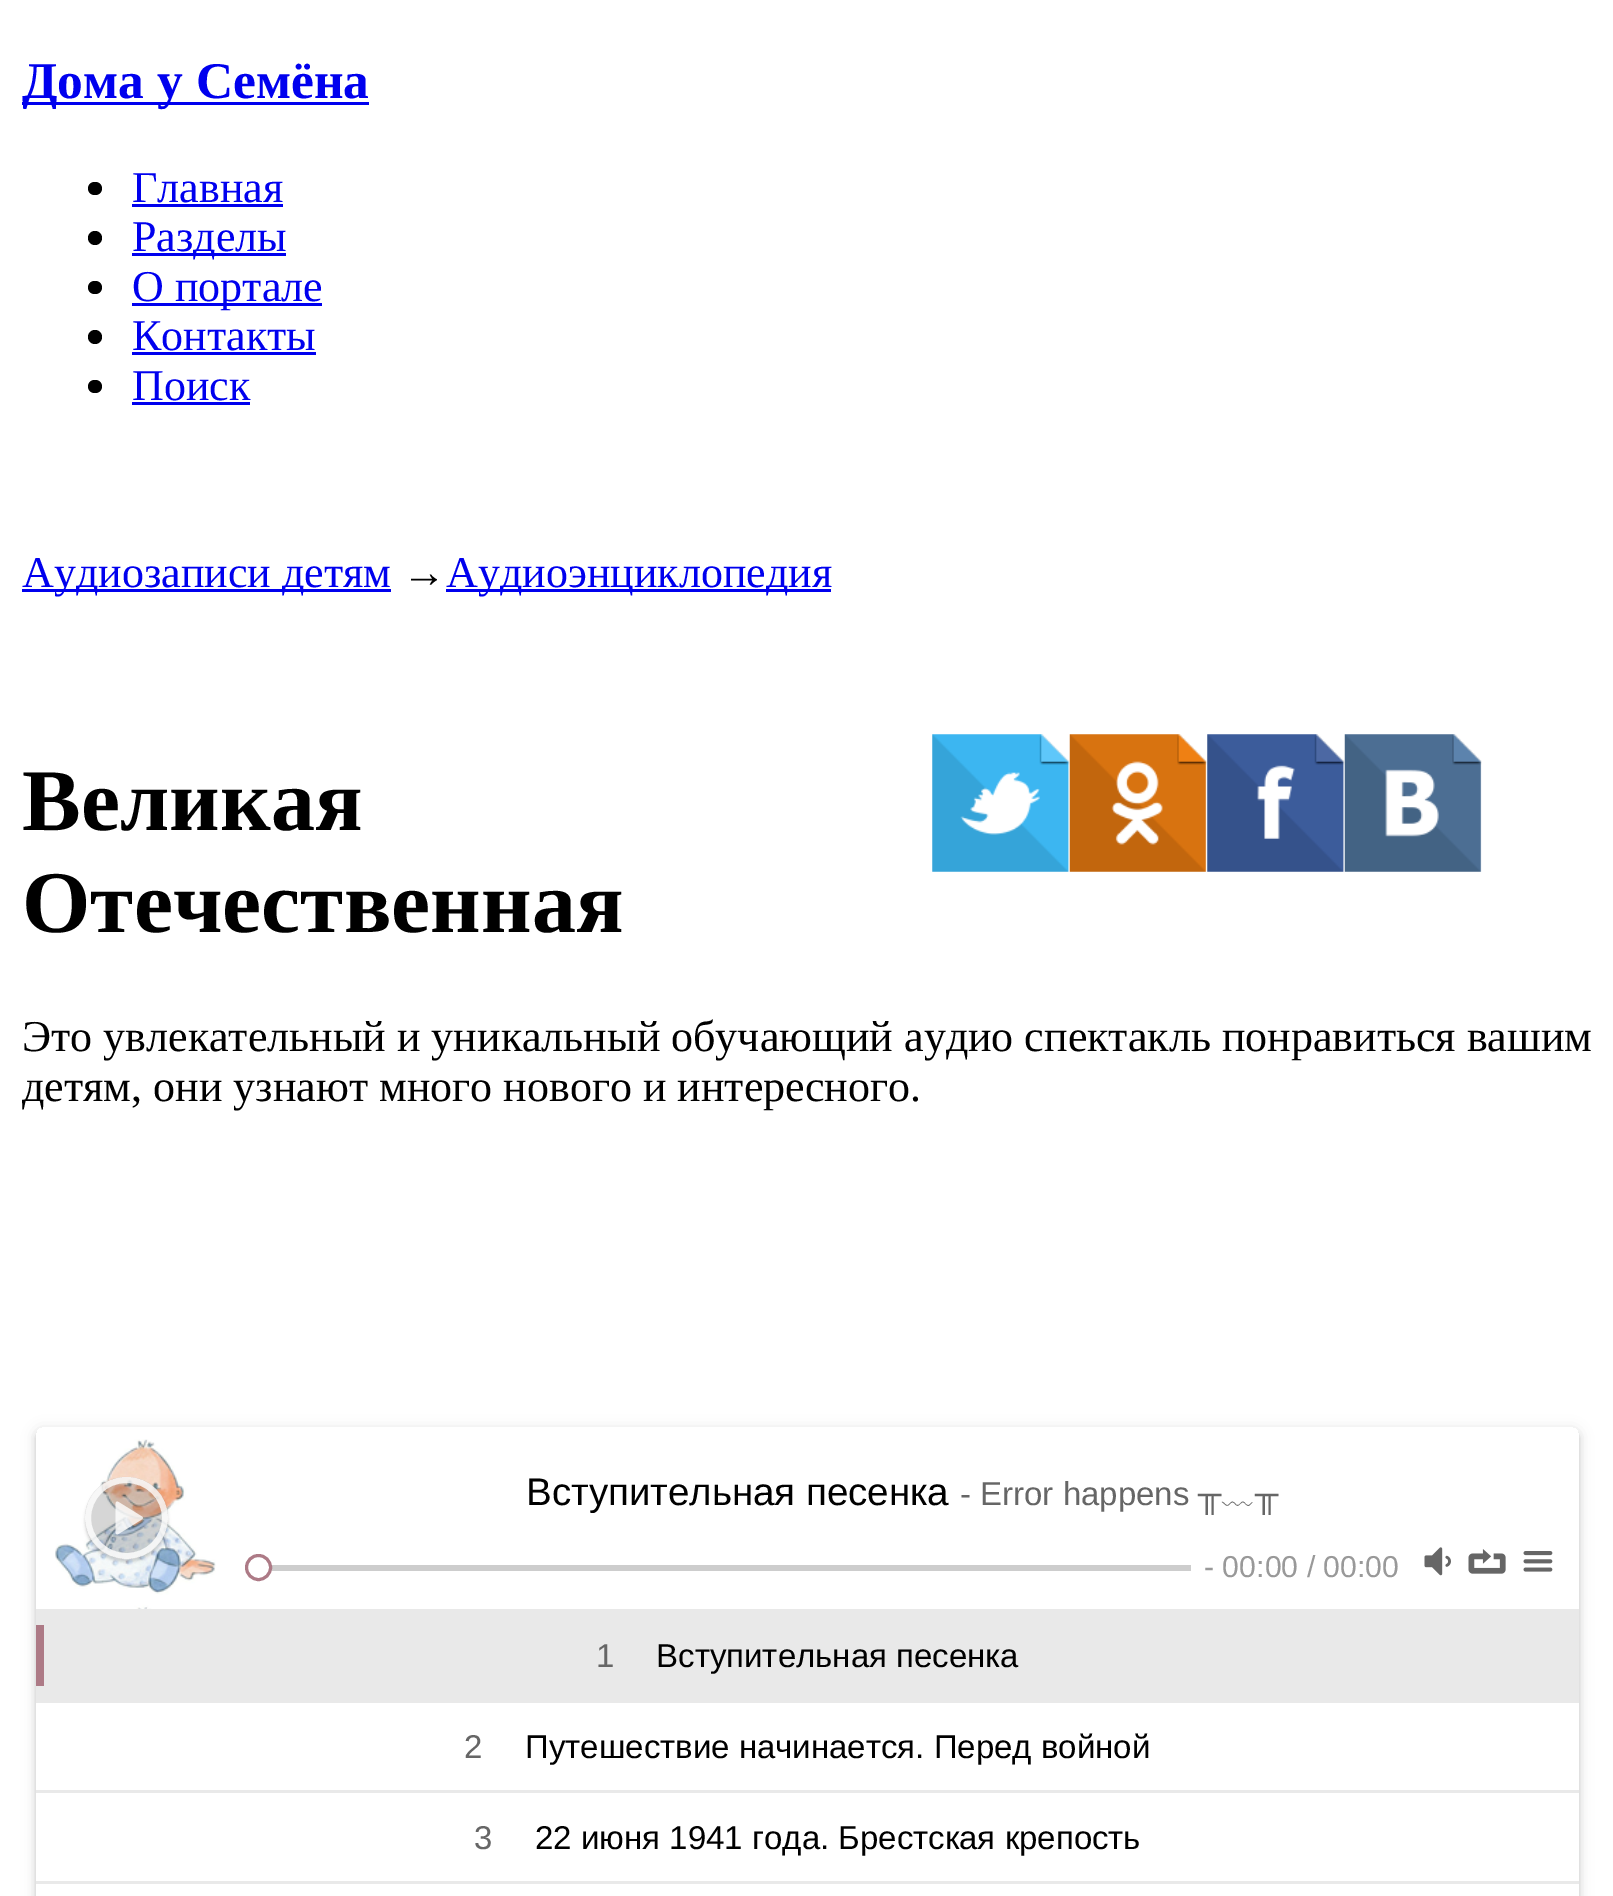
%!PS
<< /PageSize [1613 1896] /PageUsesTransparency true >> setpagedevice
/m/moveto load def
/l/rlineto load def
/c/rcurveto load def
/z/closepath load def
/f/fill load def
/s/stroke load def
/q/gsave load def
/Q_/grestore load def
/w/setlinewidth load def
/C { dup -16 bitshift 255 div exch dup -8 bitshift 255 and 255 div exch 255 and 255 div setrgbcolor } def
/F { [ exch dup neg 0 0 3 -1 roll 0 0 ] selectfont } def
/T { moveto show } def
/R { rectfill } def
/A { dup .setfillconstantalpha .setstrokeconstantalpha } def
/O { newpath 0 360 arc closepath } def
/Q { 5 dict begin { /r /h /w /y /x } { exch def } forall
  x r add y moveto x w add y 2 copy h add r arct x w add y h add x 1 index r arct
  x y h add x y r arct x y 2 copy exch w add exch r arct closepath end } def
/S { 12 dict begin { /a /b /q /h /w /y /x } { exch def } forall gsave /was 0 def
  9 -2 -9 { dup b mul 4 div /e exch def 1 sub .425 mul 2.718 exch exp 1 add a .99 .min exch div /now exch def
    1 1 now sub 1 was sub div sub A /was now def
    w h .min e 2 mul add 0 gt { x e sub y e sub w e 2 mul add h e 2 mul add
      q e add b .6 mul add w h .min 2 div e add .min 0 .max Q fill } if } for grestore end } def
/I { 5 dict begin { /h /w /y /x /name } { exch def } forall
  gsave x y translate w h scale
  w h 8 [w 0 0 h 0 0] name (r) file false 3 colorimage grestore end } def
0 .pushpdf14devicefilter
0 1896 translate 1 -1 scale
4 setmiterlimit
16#FFFFFF C
0 0 1613 1896 R
16#0000EE C
22 102 121 3 R
/LiberationSerif-Bold 51.5 F
(Дома) 22 98 T
143 102 226 3 R
(у Семёна) 157 98 T
16#000000 C
88 182 14 13 6.5 Q f
/LiberationSerif-Regular 44 F
16#0000EE C
(Главная) 132 202 T
132 204 151 3 R
16#000000 C
95 238 7 O f
16#0000EE C
132 253 154 3 R
(Разделы) 132 251 T
16#000000 C
88 281 14 13 6.5 Q f
16#0000EE C
132 303 190 3 R
(О портале) 132 301 T
16#000000 C
95 337 7 O f
16#0000EE C
(Контакты) 132 350 T
132 352 184 3 R
16#000000 C
88 380 14 13 6.5 Q f
16#0000EE C
(Поиск) 132 400 T
132 402 118 3 R
22 589 369 3 R
(Аудиозаписи детям) 22 587 T
16#000000 C
(→) 402 587 T
16#0000EE C
446 589 385 3 R
(Аудиоэнциклопедия) 446 587 T
(2.rgb) 1069 734 138 138 I
(1.rgb) 932 734 138 138 I
(4.rgb) 1344 734 138 138 I
(3.rgb) 1207 734 138 138 I
/LiberationSerif-Bold 88 F
16#000000 C
(Великая) 22 830 T
(Отечественная) 22 932 T
/LiberationSerif-Regular 44 F
(Это увлекательный и уникальный обучающий аудио спектакль понравиться вашим) 22 1051 T
(детям, они узнают много нового и интересного.) 22 1101 T
q
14 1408 m 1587 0 l 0 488 l -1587 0 l z 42 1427 m 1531 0 l 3.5 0 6 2.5 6 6 c 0 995 l 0 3.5 -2.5 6 -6 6 c -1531 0 l -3.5 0 -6 -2.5 -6 -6 c 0 -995 l 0 -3.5 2.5 -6 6 -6 c z eoclip newpath
36 1430 1543 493 6 7 .12 S
Q_
q
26 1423 m 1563 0 l 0 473 l -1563 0 l z 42 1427 m 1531 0 l 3.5 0 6 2.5 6 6 c 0 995 l 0 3.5 -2.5 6 -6 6 c -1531 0 l -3.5 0 -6 -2.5 -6 -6 c 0 -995 l 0 -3.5 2.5 -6 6 -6 c z eoclip newpath
36 1433 1543 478 6 3 .14 S
Q_
(5.rgb) 55 1439 161 170 I
q
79 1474 m 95 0 l 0 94 l -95 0 l z 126 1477 m 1 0 l 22.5 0 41 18.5 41 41 c 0 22.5 -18.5 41 -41 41 c -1 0 l -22.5 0 -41 -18.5 -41 -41 c 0 -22.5 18.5 -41 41 -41 c z eoclip newpath
85 1480 83 82 41 1.5 .16 S
Q_
0.16 A
85 1477 83 82 41 Q f
0.8 A
16#FFFFFF C
6 w
88 1480 77 76 38 Q s
1 A
(6.rgb) 115 1501 28 34 I
/LiberationSans-Regular 38.5 F
16#000000 C
(Вступительная песенка) 526 1505 T
/LiberationSans-Regular 33 F
16#666666 C
(- Error happens ╥) 960 1505 T
/WenQuanYiZenHei-Medium 33 F
(﹏) 1222 1505 T
/LiberationSans-Regular 33 F
(╥) 1255 1505 T
16#CDCDCD C
271 1565 920 6 R
16#FFFFFF C
258.5 1567.5 12 O q f Q_
16#AD7A86 C
3 w
s
/LiberationSans-Regular 30.25 F
16#999999 C
(- 00:00 / 00:00) 1204 1577 T
(7.rgb) 1424 1547 27 29 I
(8.rgb) 1468 1549 38 25 I
(9.rgb) 1523 1551 30 21 I
16#E9E9E9 C
36 1609 1543 94 R
16#AD7A86 C
36 1625 8 61 R
/LiberationSans-Regular 33 F
16#666666 C
(1) 596 1667 T
16#000000 C
(Вступительная песенка) 656 1667 T
16#666666 C
(2) 464 1758 T
16#000000 C
(Путешествие начинается. Перед войной) 525 1758 T
16#E9E9E9 C
36 1790 1543 3 R
16#666666 C
(3) 474 1849 T
16#000000 C
(22 июня 1941 года. Брестская крепость) 535 1849 T
16#E9E9E9 C
36 1881 1543 3 R
.poppdf14devicefilter showpage
